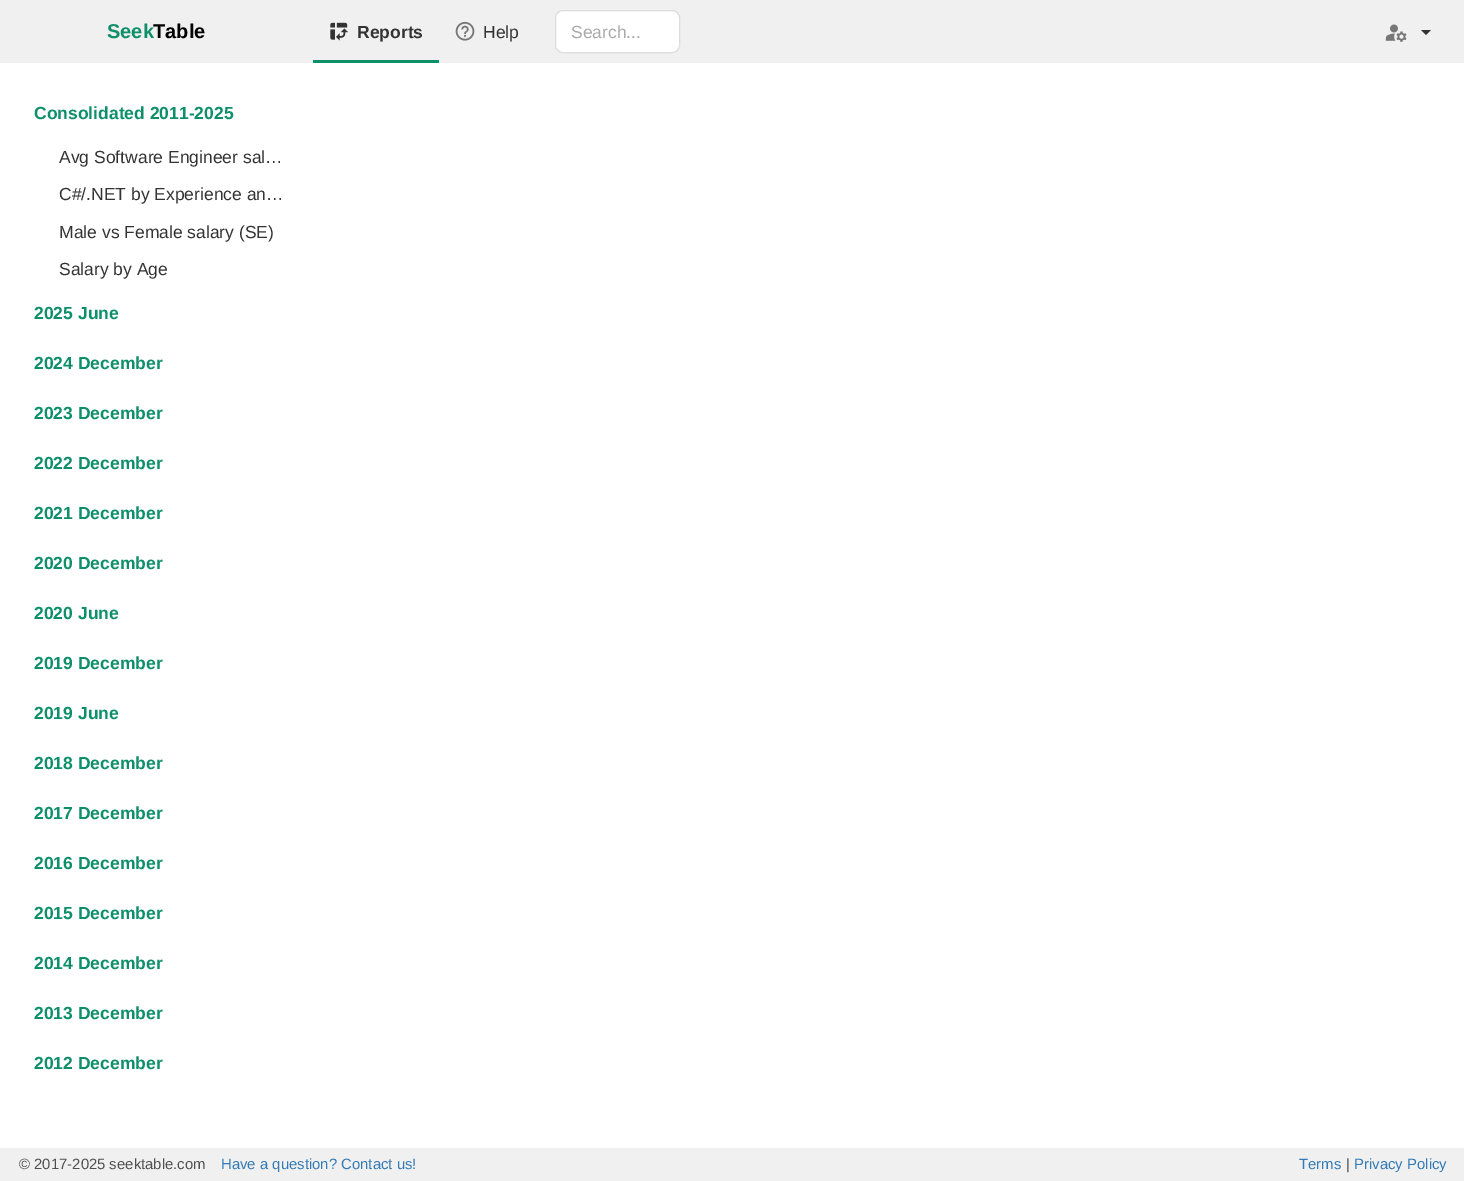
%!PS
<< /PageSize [1464 1181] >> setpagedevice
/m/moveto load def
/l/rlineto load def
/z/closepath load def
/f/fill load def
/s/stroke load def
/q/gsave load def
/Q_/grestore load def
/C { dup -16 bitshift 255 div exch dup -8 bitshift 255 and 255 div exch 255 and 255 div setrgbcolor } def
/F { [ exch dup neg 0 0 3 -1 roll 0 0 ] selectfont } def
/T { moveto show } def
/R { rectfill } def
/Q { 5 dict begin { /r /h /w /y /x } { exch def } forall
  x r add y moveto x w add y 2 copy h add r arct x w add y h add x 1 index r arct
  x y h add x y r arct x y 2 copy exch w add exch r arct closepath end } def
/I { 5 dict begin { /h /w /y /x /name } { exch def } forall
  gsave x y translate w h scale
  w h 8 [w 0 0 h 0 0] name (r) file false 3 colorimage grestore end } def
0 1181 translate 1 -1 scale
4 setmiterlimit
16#FFFFFF C
0 0 1464 1181 R
16#F0F0F0 C
0 0 1464 63 R
/LiberationSans-Bold 20 F
16#0D8F6A C
(Seek) 107 38 T
16#000000 C
(Table) 153 38 T
16#0D8F6A C
313 60 126 3 R
(1.rgb) 330 22 18 19 I
/LiberationSans-Bold 17.5 F
16#333333 C
(Reports) 357 38 T
(2.rgb) 455 21 20 20 I
/LiberationSans-Regular 17.5 F
(Help) 483 38 T
16#FFFFFF C
555.5 10.5 124 42 7.5 Q q f Q_
16#DDDDDD C
s
16#AAAAAA C
(Search...) 571 38 T
(3.rgb) 1385 24 22 18 I
16#333333 C
1421 30 m 10 0 l -5 5 l z f
/LiberationSans-Bold 17.5 F
16#0D8F6A C
(Сonsolidated 2011-2025) 34 119 T
/LiberationSans-Regular 17.5 F
16#333333 C
(Avg Software Engineer sal…) 59 163 T
(C#/.NET by Experience an…) 59 200 T
(Male vs Female salary \(SE\)) 59 238 T
(Salary by Age) 59 275 T
/LiberationSans-Bold 17.5 F
16#0D8F6A C
(2025 June) 34 319 T
(2024 December) 34 369 T
(2023 December) 34 419 T
(2022 December) 34 469 T
(2021 December) 34 519 T
(2020 December) 34 569 T
(2020 June) 34 619 T
(2019 December) 34 669 T
(2019 June) 34 719 T
(2018 December) 34 769 T
(2017 December) 34 819 T
(2016 December) 34 869 T
(2015 December) 34 919 T
(2014 December) 34 969 T
(2013 December) 34 1019 T
(2012 December) 34 1069 T
16#F0F0F0 C
0 1148 1464 33 R
/LiberationSans-Regular 14.9 F
16#505050 C
(© 2017-2025 seektable.com) 19 1169 T
16#337AB7 C
(Have a question? Contact us!) 221 1169 T
(Terms) 1299 1169 T
16#505050 C
(|) 1346 1169 T
16#337AB7 C
(Privacy Policy) 1354 1169 T
showpage
